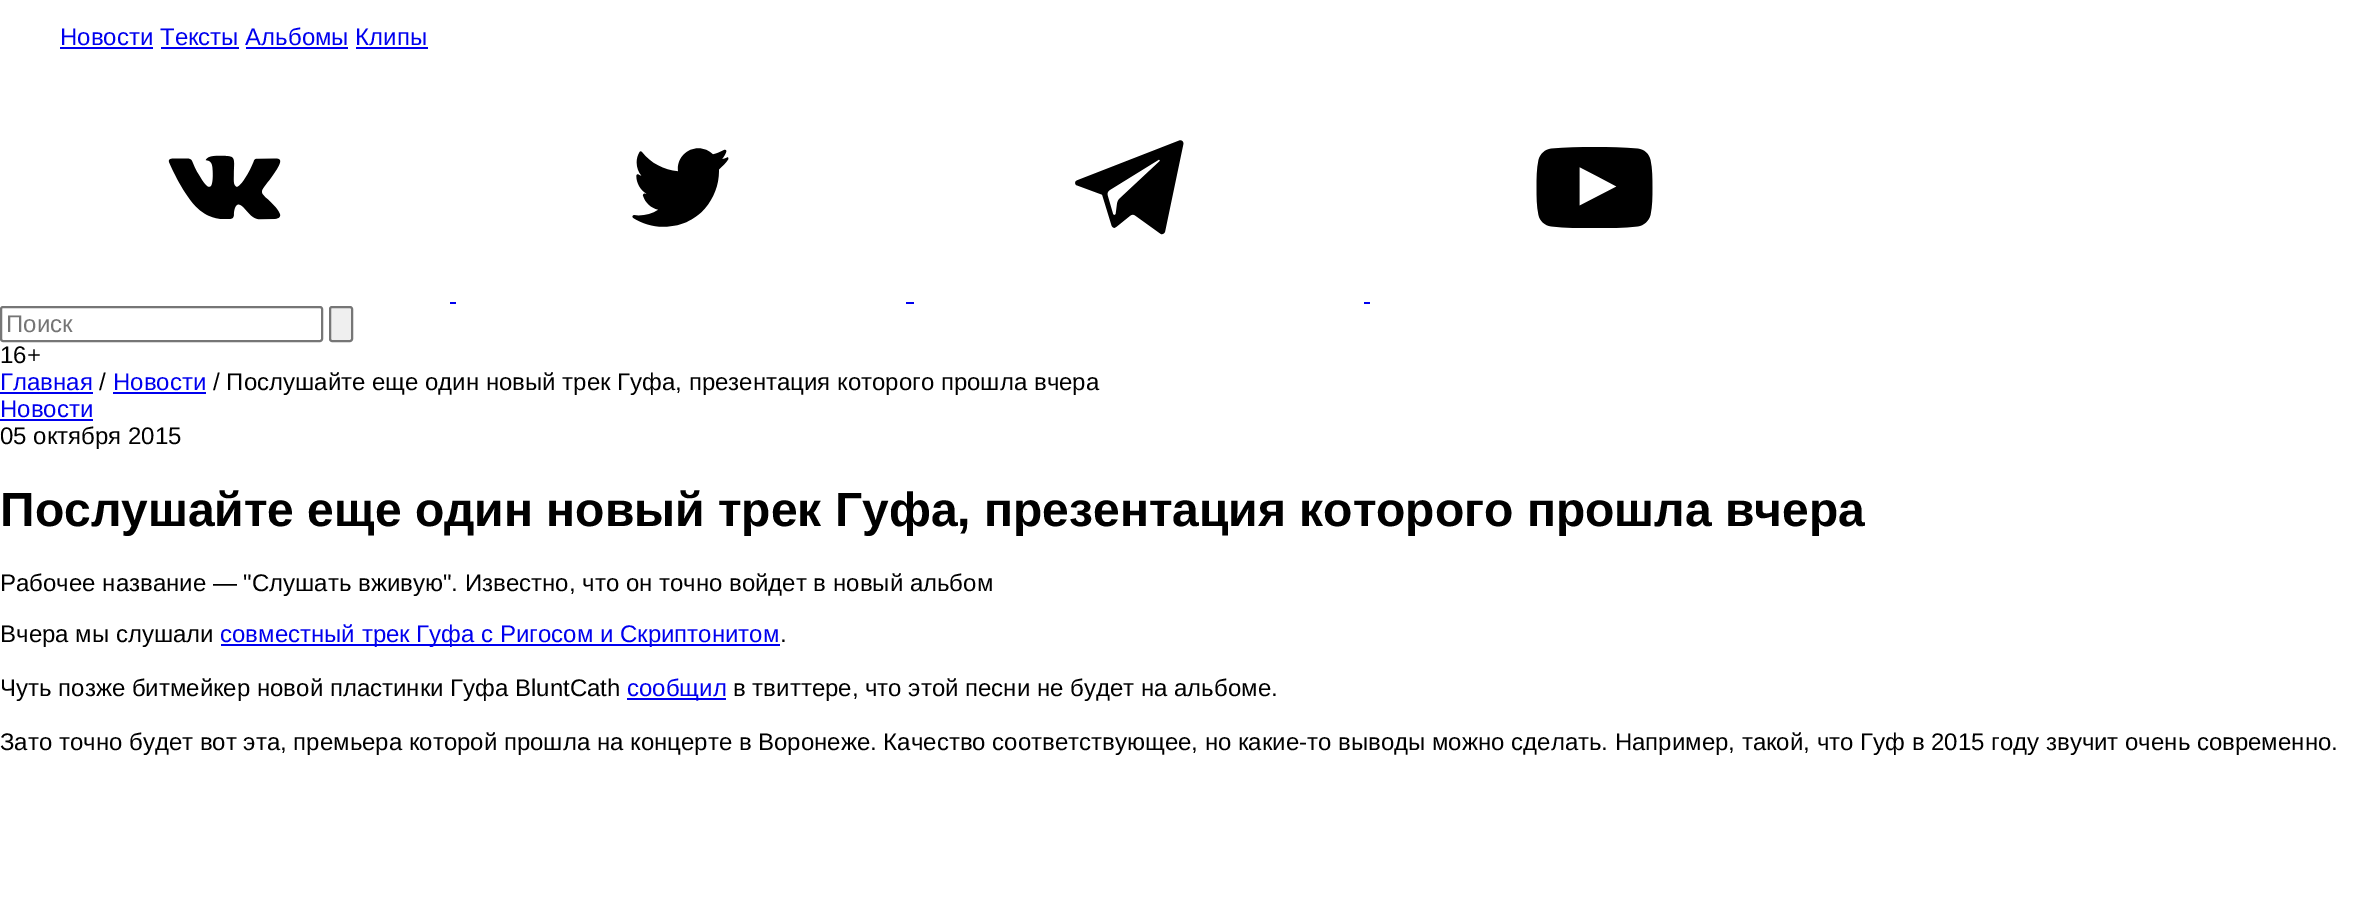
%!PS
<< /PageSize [2375 919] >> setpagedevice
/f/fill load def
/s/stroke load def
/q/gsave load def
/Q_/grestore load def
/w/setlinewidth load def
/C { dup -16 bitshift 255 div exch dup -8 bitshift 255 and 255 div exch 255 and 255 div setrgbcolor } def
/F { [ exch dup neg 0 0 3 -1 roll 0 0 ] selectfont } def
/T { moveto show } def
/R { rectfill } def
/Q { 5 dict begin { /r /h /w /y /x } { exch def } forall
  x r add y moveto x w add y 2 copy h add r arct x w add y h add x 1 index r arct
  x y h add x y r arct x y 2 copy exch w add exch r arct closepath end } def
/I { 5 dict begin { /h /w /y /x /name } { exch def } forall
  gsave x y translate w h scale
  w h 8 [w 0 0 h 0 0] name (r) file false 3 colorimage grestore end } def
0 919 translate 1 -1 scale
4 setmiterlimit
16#FFFFFF C
0 0 2375 919 R
/LiberationSans-Regular 24 F
16#0000EE C
(Новости Тексты Альбомы Клипы) 60 45 T
60 47 93 2 R
161 47 78 2 R
246 47 102 2 R
356 47 72 2 R
(1.rgb) 168 155 113 65 I
(2.rgb) 632 148 97 79 I
(3.rgb) 1075 140 109 95 I
(4.rgb) 1536 147 117 81 I
450 302 6 2 R
906 302 8 2 R
1364 302 6 2 R
16#767676 C
2 w
1 307 321 34 2 Q s
16#757575 C
(Поиск) 6 332 T
16#EFEFEF C
330 307 22 34 2 Q q f Q_
16#767676 C
s
16#000000 C
(16+) 0 363 T
16#0000EE C
(Главная) 0 390 T
0 392 93 2 R
16#000000 C
(/) 99 390 T
16#0000EE C
(Новости) 113 390 T
113 392 93 2 R
16#000000 C
(/ Послушайте еще один новый трек Гуфа, презентация которого прошла вчера) 213 390 T
16#0000EE C
(Новости) 0 417 T
0 419 93 2 R
16#000000 C
(05 октября 2015) 0 444 T
/LiberationSans-Bold 48 F
(Послушайте еще один новый трек Гуфа, презентация которого прошла вчера) 0 526 T
/LiberationSans-Regular 24 F
(Рабочее название — "Слушать вживую". Известно, что он точно войдет в новый альбом) 0 591 T
(Вчера мы слушали) 0 642 T
16#0000EE C
221 644 559 2 R
(совместный трек Гуфа с Ригосом и Скриптонитом) 220 642 T
16#000000 C
(.) 780 642 T
(Чуть позже битмейкер новой пластинки Гуфа BluntCath) 0 696 T
16#0000EE C
627 698 99 2 R
(сообщил) 627 696 T
16#000000 C
(в твиттере, что этой песни не будет на альбоме.) 733 696 T
(Зато точно будет вот эта, премьера которой прошла на концерте в Воронеже. Качество соответствующее, но какие-то выводы можно сделать. Например, такой, что Гуф в 2015 году звучит очень современно.) 0 750 T
showpage
